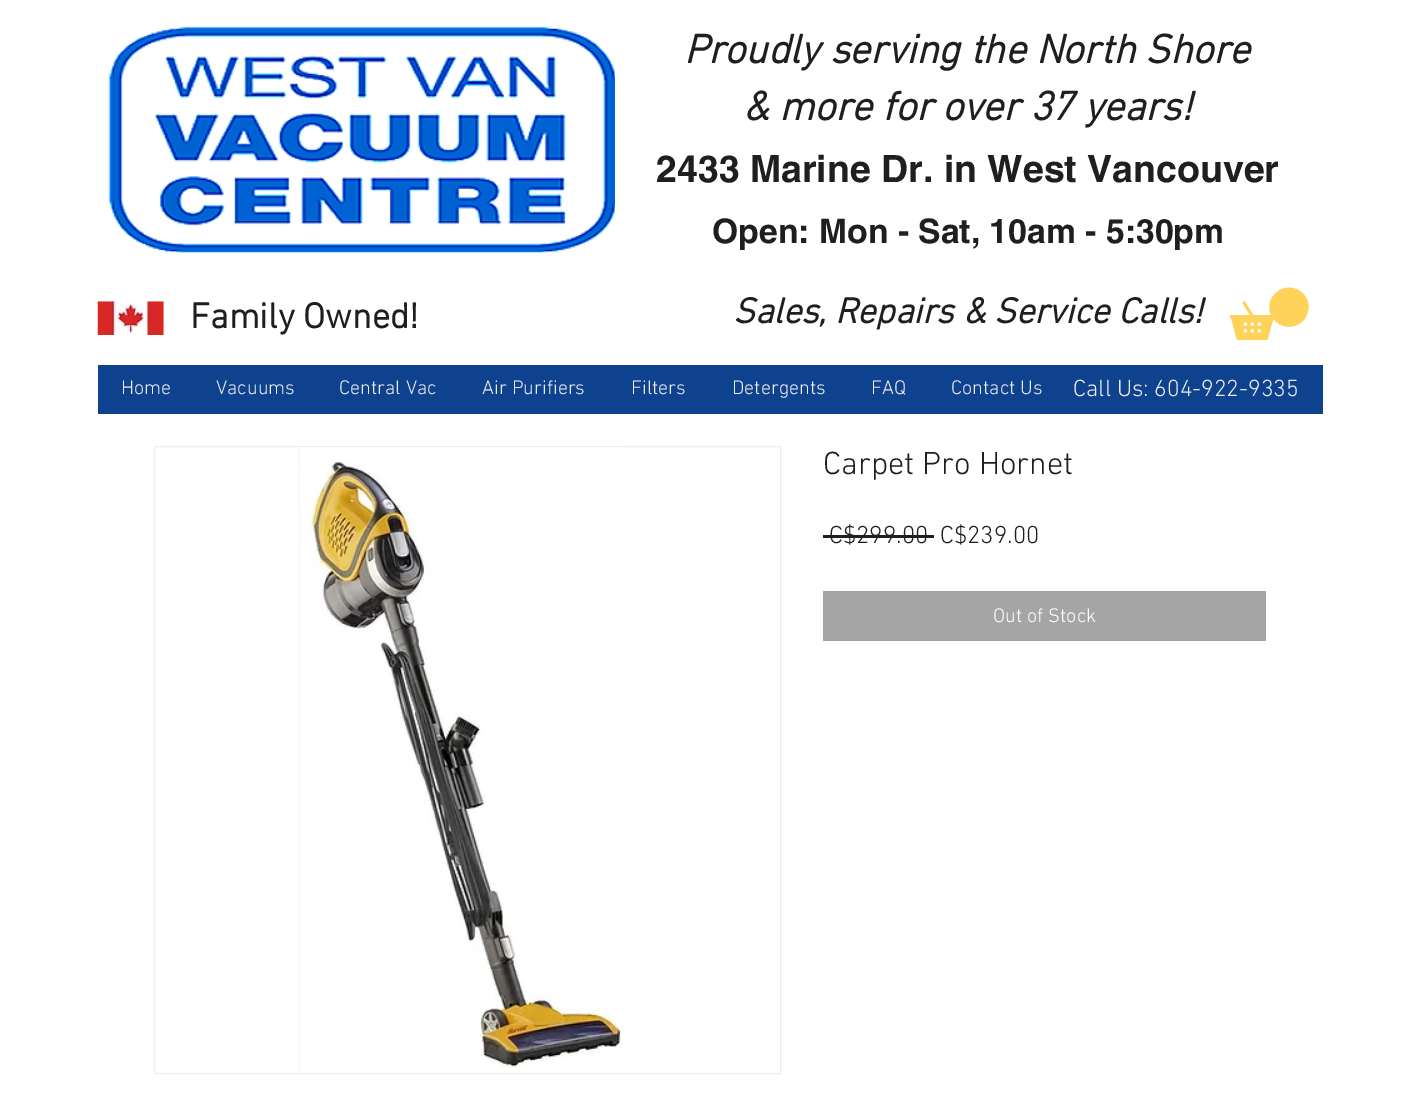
%!PS
<< /PageSize [1420 1099] >> setpagedevice
/C { dup -16 bitshift 255 div exch dup -8 bitshift 255 and 255 div exch 255 and 255 div setrgbcolor } def
/F { [ exch dup neg 0 0 3 -1 roll 0 0 ] selectfont } def
/T { moveto show } def
/R { rectfill } def
/I { 5 dict begin { /h /w /y /x /name } { exch def } forall
  gsave x y translate w h scale
  w h 8 [w 0 0 h 0 0] name (r) file false 3 colorimage grestore end } def
0 1099 translate 1 -1 scale
4 setmiterlimit
16#FFFFFF C
0 0 1420 1099 R
(1.rgb) 108 26 507 227 I
/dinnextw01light-BoldItalic 41.25 F
16#1F1F1F C
(Proudly serving the North Shore) 684 63 T
(& more for over 37 years!) 743 120 T
/helvetica-Bold 37.5 F
(2433 Marine Dr. in West Vancouver) 656 182 T
/helvetica-Bold 33.75 F
(Open: Mon - Sat, 10am - 5:30pm) 712 243 T
(2.rgb) 97 301 67 34 I
/dinnextw01light-Bold 36.25 F
(Family Owned!) 190 328 T
/dinnextw01light-BoldItalic 36.25 F
(Sales, Repairs & Service Calls!) 733 323 T
(3.rgb) 1230 287 79 54 I
16#0E428F C
98 365 1225 49 R
/dinnextw01light-Light 23.75 F
16#EEEEEE C
(Call Us: 604-922-9335) 1073 396 T
/dinnextw01light-Light 20 F
(Home) 121 394 T
(Vacuums) 216 394 T
(Central Vac) 339 394 T
(Air Purifiers) 482 394 T
(Filters) 631 394 T
(Detergents) 732 394 T
(FAQ) 871 394 T
(Contact Us) 951 394 T
154.5 446.5 626 627 rectstroke
(4.rgb) 298 447 324 625 I
/dinnextw01light-Light 32.5 F
16#1F1F1F C
(Carpet Pro Hornet) 823 474 T
/dinnextw01light-Light 25 F
(C$299.00) 829 543 T
823 535 111 3 R
(C$239.00) 940 543 T
16#A5A5A5 C
823 591 443 50 R
/dinnextw01light-Light 20 F
16#FFFFFF C
(Out of Stock) 993 622 T
showpage
